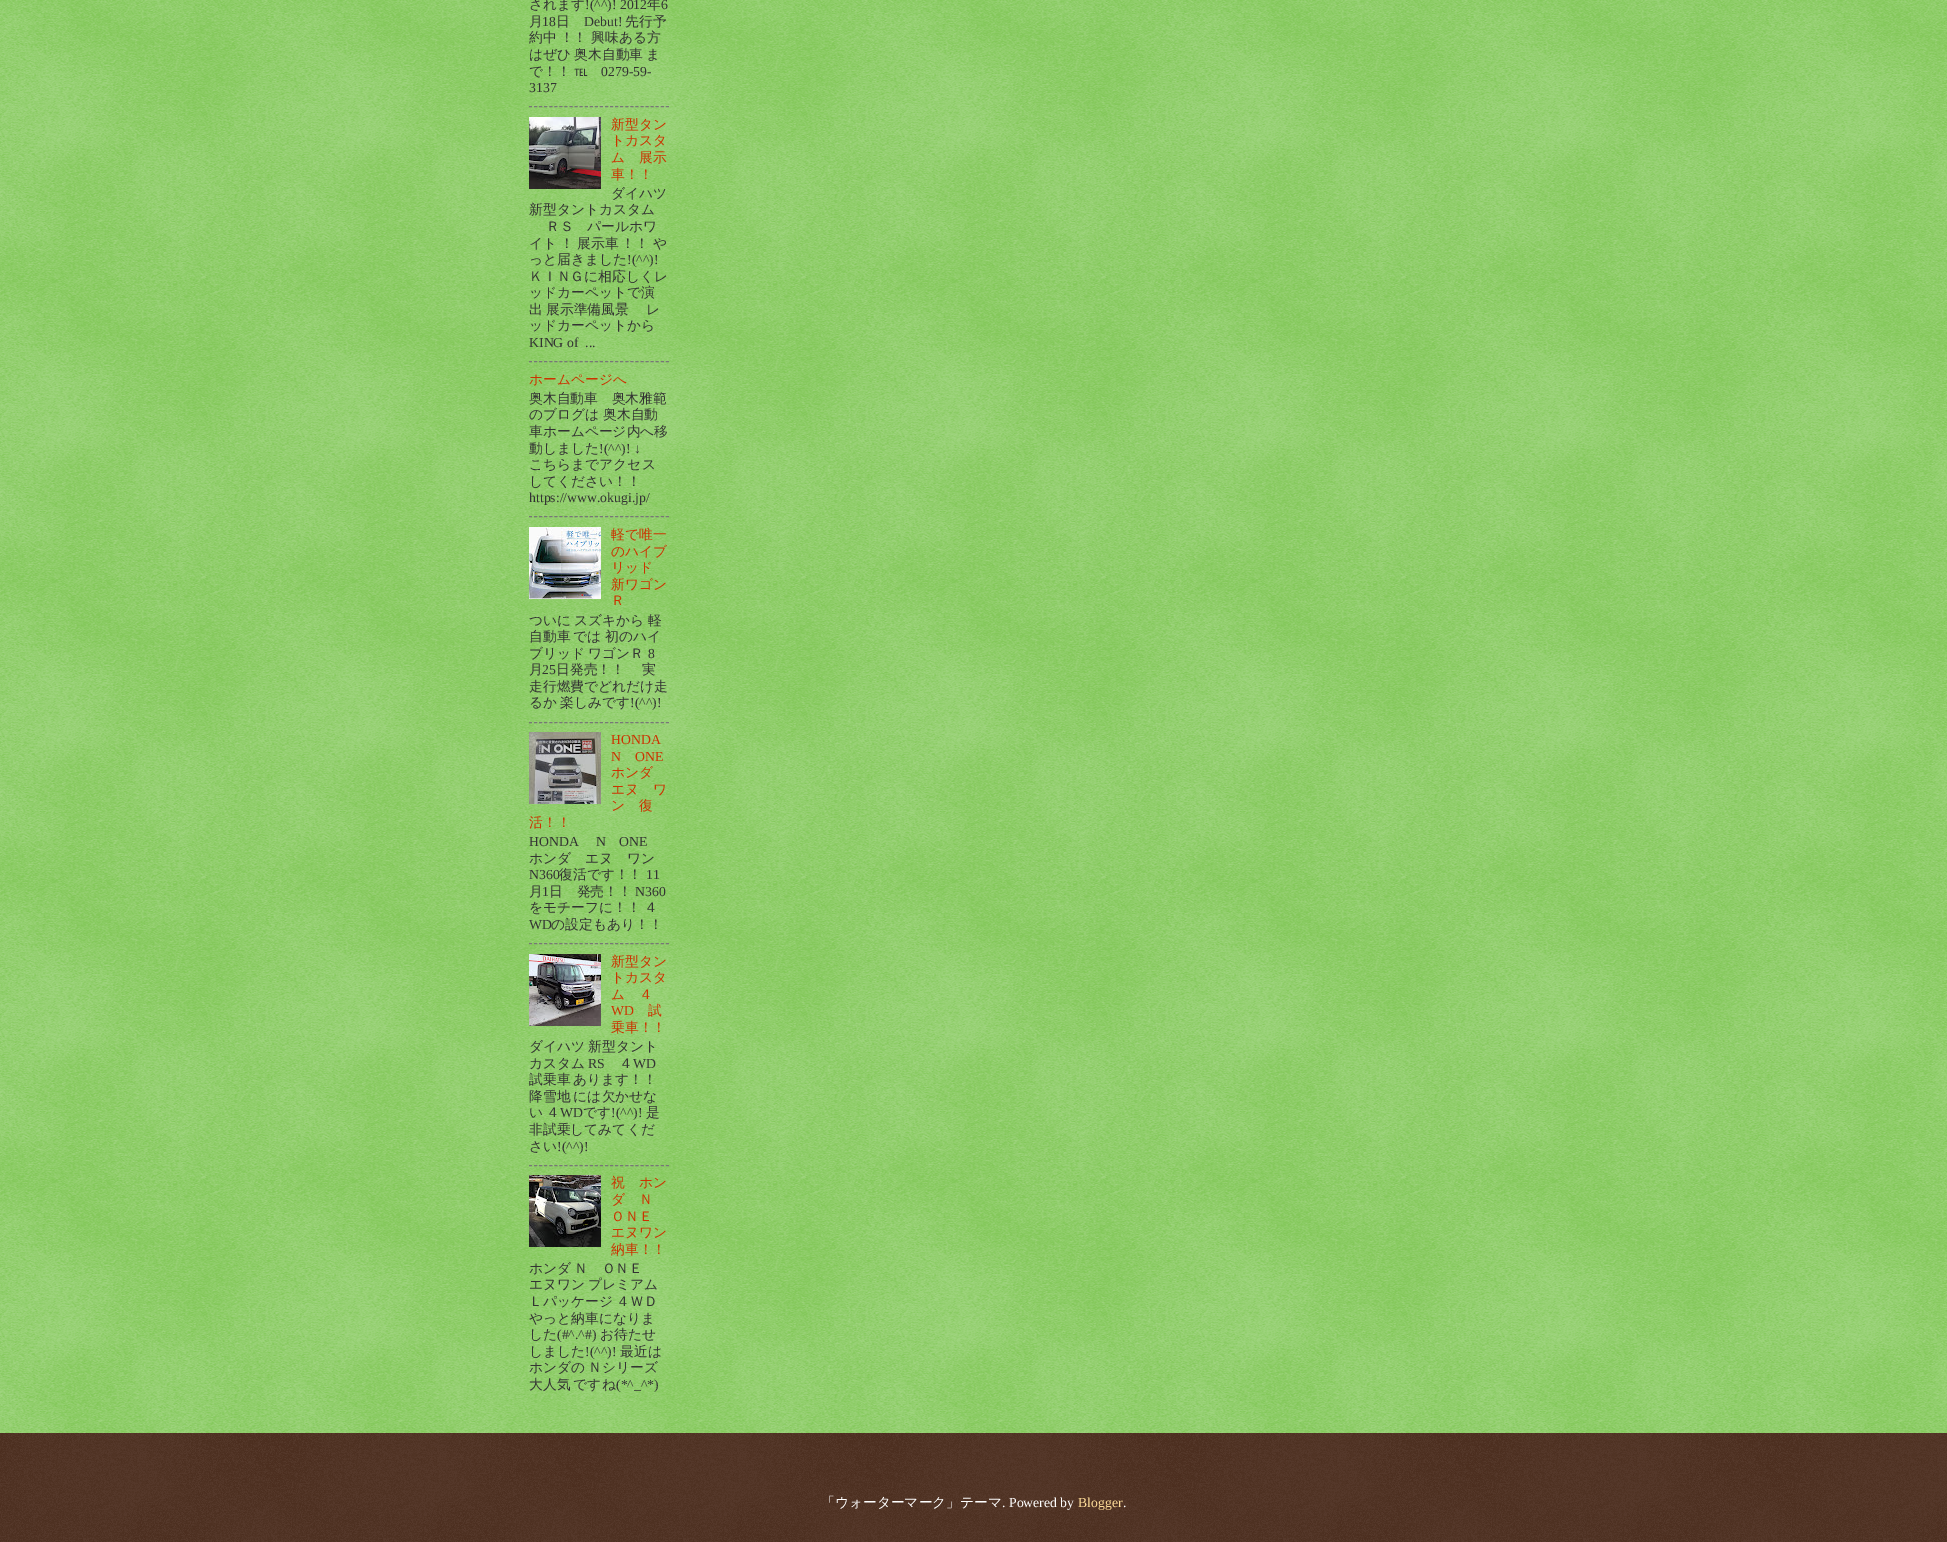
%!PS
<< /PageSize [1947 1542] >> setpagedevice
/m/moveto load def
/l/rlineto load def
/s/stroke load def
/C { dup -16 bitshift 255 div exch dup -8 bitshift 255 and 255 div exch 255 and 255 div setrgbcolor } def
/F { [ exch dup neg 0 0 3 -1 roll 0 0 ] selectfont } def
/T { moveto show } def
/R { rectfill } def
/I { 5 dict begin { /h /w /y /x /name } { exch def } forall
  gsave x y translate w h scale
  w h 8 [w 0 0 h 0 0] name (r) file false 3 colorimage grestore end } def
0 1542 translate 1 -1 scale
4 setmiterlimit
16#66BB33 C
0 0 1947 1542 R
(1.rgb) 0 0 1947 1433 I
/WenQuanYiZenHei-Medium 13.75 F
16#333333 C
(されます) 529 9 T
/LiberationSerif-Regular 13.75 F
(!\(^^\)! 2012) 585 9 T
/WenQuanYiZenHei-Medium 13.75 F
(年) 647 9 T
/LiberationSerif-Regular 13.75 F
(6) 661 9 T
/WenQuanYiZenHei-Medium 13.75 F
(月) 529 26 T
/LiberationSerif-Regular 13.75 F
(18) 542 26 T
/WenQuanYiZenHei-Medium 13.75 F
(日) 556 26 T
/LiberationSerif-Regular 13.75 F
(Debut!) 584 26 T
/WenQuanYiZenHei-Medium 13.75 F
(先行予) 625 26 T
529 42 m -1 0 32 (約中 ！！) widthshow
(興味ある方) 591 42 T
529 59 m -1 0 32 (はぜひ 奥木自動車 ま) widthshow
(で！！) 529 76 T
(℡) 574 76 T
/LiberationSerif-Regular 13.75 F
(0279-59-) 601 76 T
(3137) 529 92 T
16#777777 C
[3 2.07] 0 setdash
529 106.5 m 140 0 l s
(2.rgb) 529 117 72 72 I
/WenQuanYiZenHei-Medium 13.75 F
16#CC3300 C
(新型タン) 611 129 T
(トカスタ) 611 145 T
(ム　展示) 611 162 T
(車！！) 611 179 T
16#333333 C
(ダイハツ) 611 198 T
(新型タントカスタム) 529 214 T
(ＲＳ　パールホワ) 546 231 T
529 248 m -1 0 32 (イト ！) widthshow
577 248 m -1 0 32 (展示車 ！！) widthshow
(や) 653 248 T
(っと届きました) 529 264 T
/LiberationSerif-Regular 13.75 F
(!\(^^\)!) 627 264 T
/WenQuanYiZenHei-Medium 13.75 F
(ＫＩＮＧに相応しくレ) 529 281 T
(ッドカーペットで演) 529 297 T
(出) 529 314 T
(展示準備風景) 546 314 T
(レ) 646 314 T
(ッドカーペットから) 529 330 T
/LiberationSerif-Regular 13.75 F
(KING of  ...) 529 347 T
16#777777 C
529 361.5 m 140 0 l s
/WenQuanYiZenHei-Medium 13.75 F
16#CC3300 C
(ホームページへ) 529 384 T
16#333333 C
(奥木自動車　奥木雅範) 529 403 T
(のブログは) 529 419 T
(奥木自動) 603 419 T
(車ホームページ内へ移) 529 436 T
(動しました) 529 453 T
/LiberationSerif-Regular 13.75 F
(!\(^^\)! ↓) 599 453 T
/WenQuanYiZenHei-Medium 13.75 F
(こちらまでアクセス) 529 469 T
(してください！！) 529 486 T
/LiberationSerif-Regular 13.75 F
(https://www.okugi.jp/) 529 502 T
16#777777 C
529 516.5 m 140 0 l s
(3.rgb) 529 527 72 72 I
/WenQuanYiZenHei-Medium 13.75 F
16#CC3300 C
(軽で唯一) 611 539 T
(のハイブ) 611 556 T
(リッド) 611 572 T
(新ワゴン) 611 589 T
(Ｒ) 611 605 T
16#333333 C
(ついに) 529 625 T
(スズキから) 574 625 T
(軽) 648 625 T
529 641 m -1 0 32 (自動車 では) widthshow
(初のハイ) 605 641 T
(ブリッド) 529 658 T
(ワゴンＲ) 588 658 T
/LiberationSerif-Regular 13.75 F
(8) 648 658 T
/WenQuanYiZenHei-Medium 13.75 F
(月) 529 674 T
/LiberationSerif-Regular 13.75 F
(25) 542 674 T
/WenQuanYiZenHei-Medium 13.75 F
(日発売！！) 556 674 T
(実) 642 674 T
(走行燃費でどれだけ走) 529 691 T
(るか) 529 707 T
(楽しみです) 560 707 T
/LiberationSerif-Regular 13.75 F
(!\(^^\)!) 630 707 T
16#777777 C
529 722.5 m 140 0 l s
(4.rgb) 529 732 72 72 I
16#CC3300 C
(HONDA) 611 744 T
(N) 611 761 T
(ONE) 635 761 T
/WenQuanYiZenHei-Medium 13.75 F
(ホンダ) 611 777 T
(エヌ　ワ) 611 794 T
(ン　復) 611 810 T
(活！！) 529 827 T
/LiberationSerif-Regular 13.75 F
16#333333 C
(HONDA) 529 846 T
(N) 596 846 T
(ONE) 619 846 T
/WenQuanYiZenHei-Medium 13.75 F
(ホンダ　エヌ　ワン) 529 863 T
/LiberationSerif-Regular 13.75 F
(N360) 529 879 T
/WenQuanYiZenHei-Medium 13.75 F
(復活です！！) 559 879 T
/LiberationSerif-Regular 13.75 F
(11) 646 879 T
/WenQuanYiZenHei-Medium 13.75 F
(月) 529 896 T
/LiberationSerif-Regular 13.75 F
(1) 542 896 T
/WenQuanYiZenHei-Medium 13.75 F
(日　発売！！) 549 896 T
/LiberationSerif-Regular 13.75 F
(N360) 635 896 T
/WenQuanYiZenHei-Medium 13.75 F
(をモチーフに！！) 529 912 T
(４) 644 912 T
/LiberationSerif-Regular 13.75 F
(WD) 529 929 T
/WenQuanYiZenHei-Medium 13.75 F
(の設定もあり！！) 551 929 T
16#777777 C
529 943.5 m 140 0 l s
(5.rgb) 529 954 72 72 I
16#CC3300 C
(新型タン) 611 966 T
(トカスタ) 611 982 T
(ム　４) 611 999 T
/LiberationSerif-Regular 13.75 F
(WD) 611 1015 T
/WenQuanYiZenHei-Medium 13.75 F
(試) 648 1015 T
(乗車！！) 611 1032 T
16#333333 C
(ダイハツ) 529 1051 T
(新型タント) 588 1051 T
(カスタム) 529 1068 T
/LiberationSerif-Regular 13.75 F
(RS) 588 1068 T
/WenQuanYiZenHei-Medium 13.75 F
(４) 619 1068 T
/LiberationSerif-Regular 13.75 F
(WD) 633 1068 T
/WenQuanYiZenHei-Medium 13.75 F
(試乗車) 529 1084 T
(あります！！) 573 1084 T
529 1101 m -1 0 32 (降雪地 には欠かせな) widthshow
(い) 529 1117 T
(４) 546 1117 T
/LiberationSerif-Regular 13.75 F
(WD) 560 1117 T
/WenQuanYiZenHei-Medium 13.75 F
(です) 583 1117 T
/LiberationSerif-Regular 13.75 F
(!\(^^\)!) 611 1117 T
/WenQuanYiZenHei-Medium 13.75 F
(是) 646 1117 T
(非試乗してみてくだ) 529 1134 T
(さい) 529 1151 T
/LiberationSerif-Regular 13.75 F
(!\(^^\)!) 557 1151 T
16#777777 C
529 1165.5 m 140 0 l s
(6.rgb) 529 1175 72 72 I
/WenQuanYiZenHei-Medium 13.75 F
16#CC3300 C
(祝　ホン) 611 1187 T
(ダ　Ｎ) 611 1204 T
(ＯＮＥ) 611 1221 T
(エヌワン) 611 1237 T
(納車！！) 611 1254 T
16#333333 C
(ホンダ) 529 1273 T
(Ｎ　ＯＮＥ) 574 1273 T
(エヌワン) 529 1289 T
(プレミアム) 588 1289 T
(Ｌパッケージ) 529 1306 T
(４ＷＤ) 616 1306 T
(やっと納車になりま) 529 1323 T
(した) 529 1339 T
/LiberationSerif-Regular 13.75 F
(\(#^.^#\)) 557 1339 T
/WenQuanYiZenHei-Medium 13.75 F
(お待たせ) 600 1339 T
(しました) 529 1356 T
/LiberationSerif-Regular 13.75 F
(!\(^^\)!) 585 1356 T
/WenQuanYiZenHei-Medium 13.75 F
(最近は) 620 1356 T
529 1372 m -1 0 32 (ホンダの Ｎシリーズ) widthshow
529 1389 m -1 0 32 (大人気 ですね) widthshow
/LiberationSerif-Regular 13.75 F
(\(*^_^*\)) 616 1389 T
16#331100 C
0 1433 1947 109 R
(7.rgb) 0 1433 1947 109 I
/WenQuanYiZenHei-Medium 13.75 F
16#FFFFFF C
(「ウォーターマーク」テーマ) 821 1507 T
/LiberationSerif-Regular 13.75 F
(. Powered by) 1002 1507 T
16#FFDD99 C
(Blogger) 1078 1507 T
16#FFFFFF C
(.) 1123 1507 T
showpage
